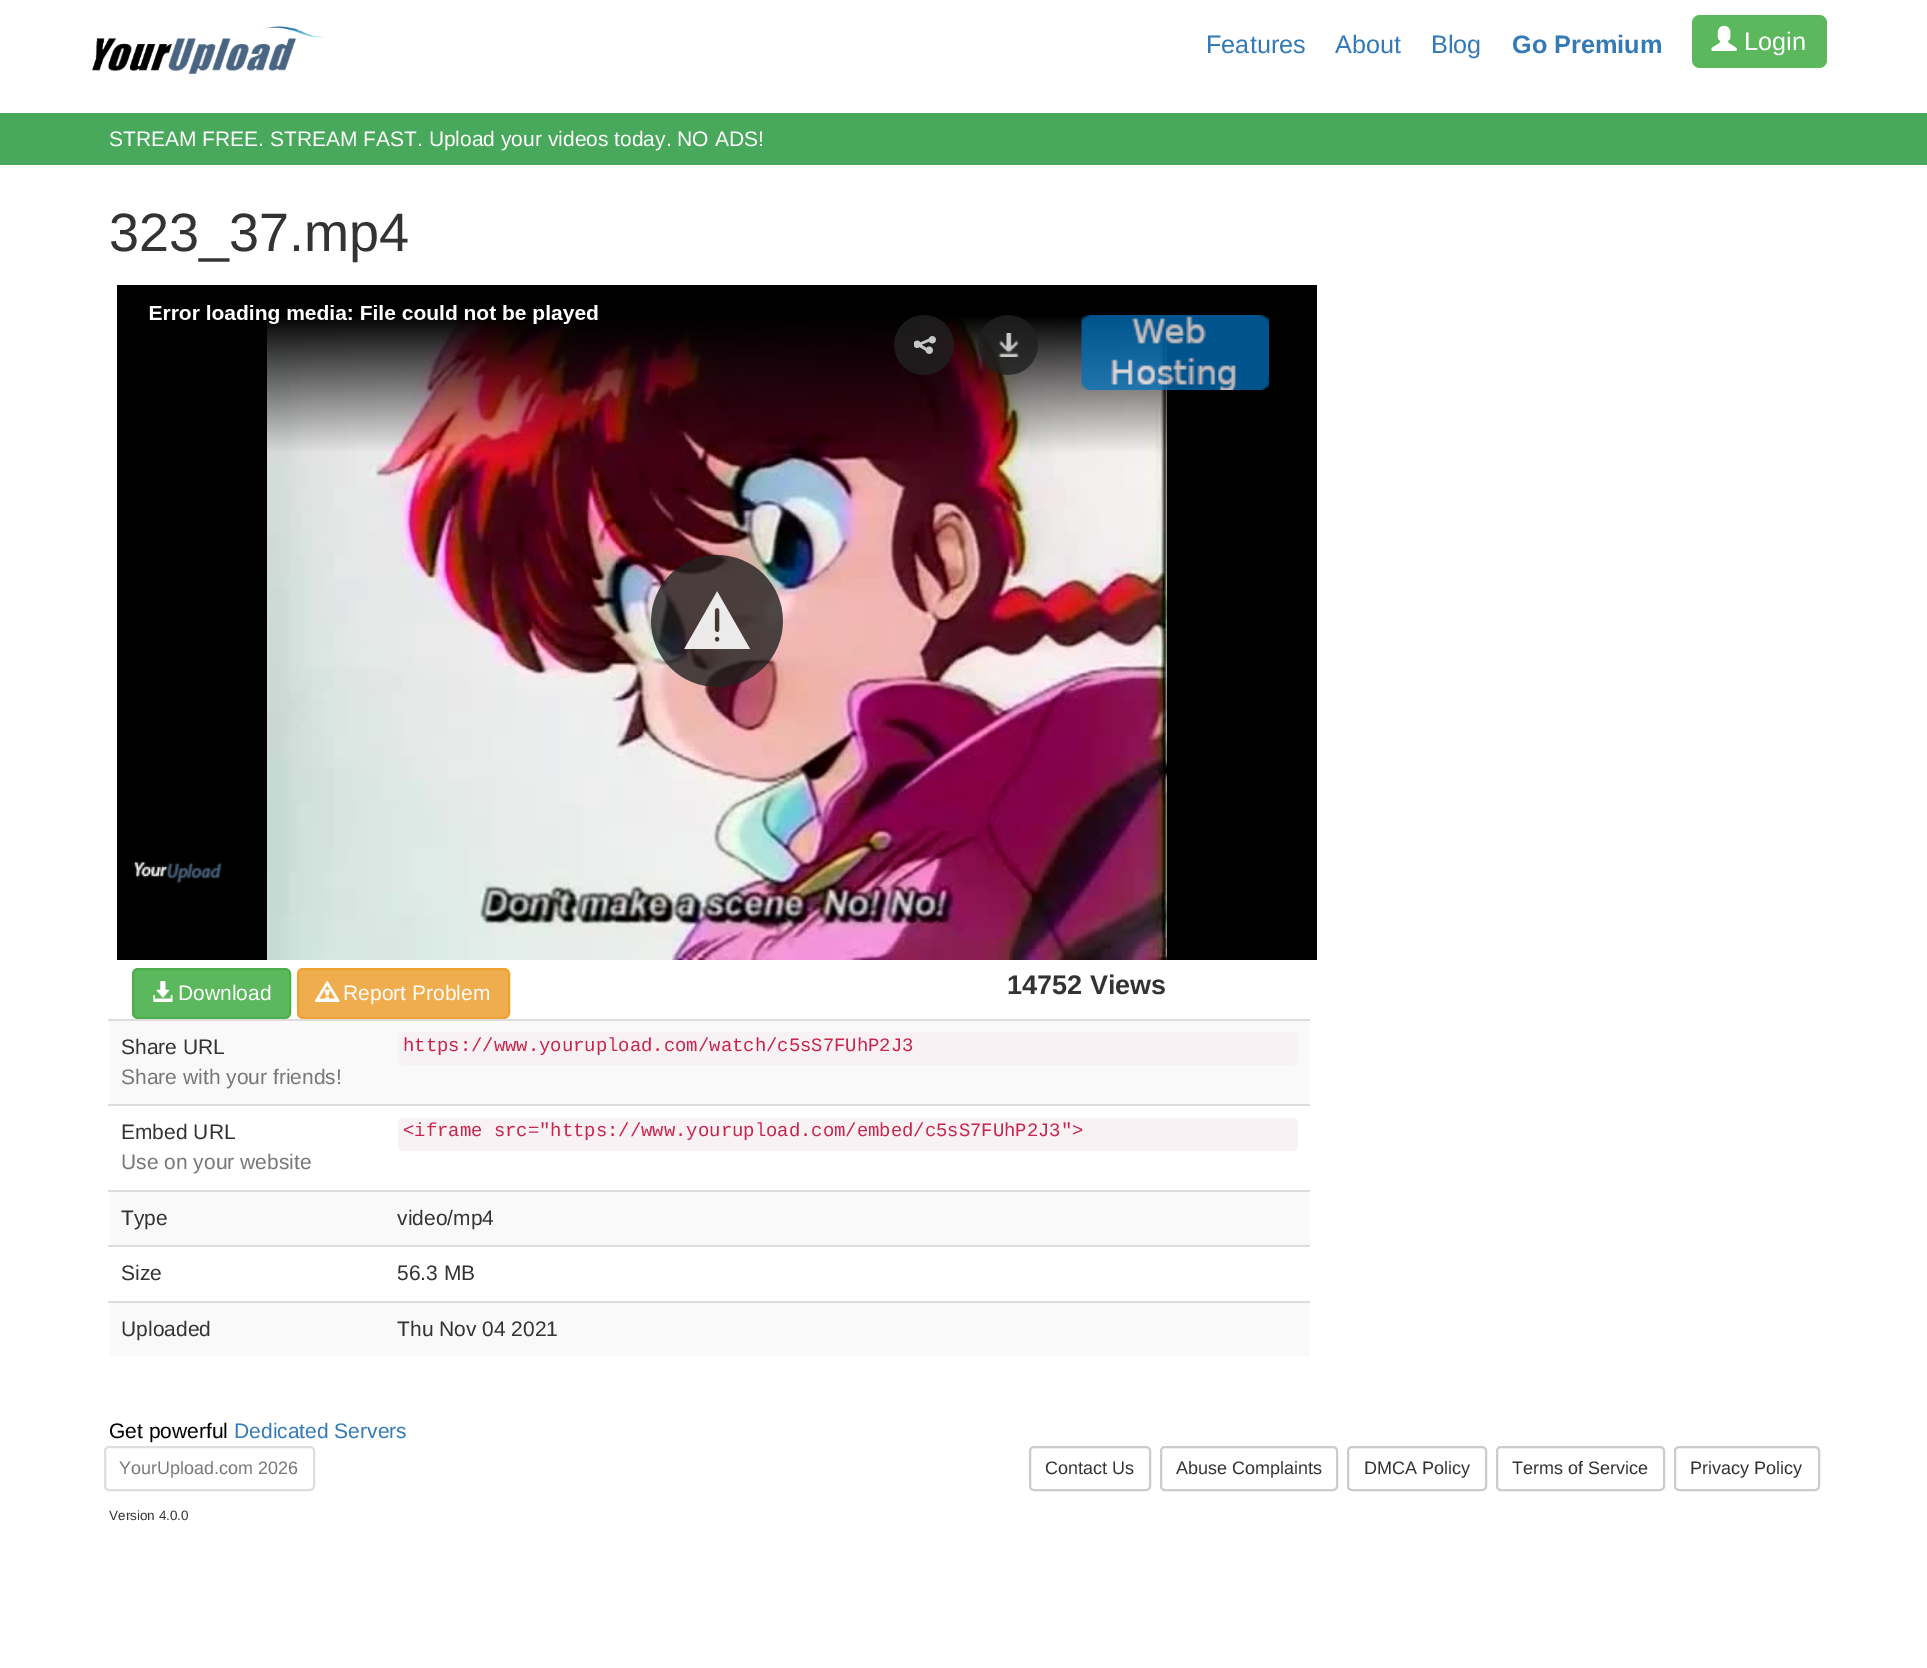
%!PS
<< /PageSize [1927 1668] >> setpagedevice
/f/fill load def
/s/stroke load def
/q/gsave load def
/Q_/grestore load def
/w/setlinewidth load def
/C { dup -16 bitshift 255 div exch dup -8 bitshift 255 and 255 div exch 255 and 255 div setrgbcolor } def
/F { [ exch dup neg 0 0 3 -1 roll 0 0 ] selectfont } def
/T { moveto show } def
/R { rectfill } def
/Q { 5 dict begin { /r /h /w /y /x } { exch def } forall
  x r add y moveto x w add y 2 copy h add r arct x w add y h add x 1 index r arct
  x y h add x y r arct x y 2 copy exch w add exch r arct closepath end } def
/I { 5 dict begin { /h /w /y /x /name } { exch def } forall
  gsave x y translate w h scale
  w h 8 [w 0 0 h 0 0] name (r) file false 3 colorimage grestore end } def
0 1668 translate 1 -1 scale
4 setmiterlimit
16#FFFFFF C
0 0 1927 1668 R
(1.rgb) 92 26 234 48 I
/LiberationSans-Regular 25.25 F
16#337AB7 C
(Features) 1206 53 T
(About) 1335 53 T
(Blog) 1431 53 T
/LiberationSans-Bold 25.25 F
(Go Premium) 1512 53 T
16#5CB85C C
1692 15 135 53 8 Q f
(2.rgb) 1711 25 26 26 I
/LiberationSans-Regular 25.25 F
16#FFFFFF C
(Login) 1744 50 T
16#48A85B C
0 113 1927 52 R
/LiberationSans-Regular 21 F
16#FFFFFF C
(STREAM FREE. STREAM FAST. Upload your videos today. NO ADS!) 109 146 T
/LiberationSans-Regular 54 F
16#333333 C
(323_37.mp4) 109 251 T
(3.rgb) 117 285 1200 675 I
16#5CB85C C
133 969 157 49 5 Q q f Q_
16#4CAE4C C
2 w
s
(4.rgb) 153 981 20 21 I
/LiberationSans-Regular 21 F
16#FFFFFF C
(Download) 178 1000 T
16#F0AD4E C
298 969 211 49 5 Q q f Q_
16#EEA236 C
s
(5.rgb) 315 981 25 21 I
16#FFFFFF C
(Report Problem) 343 1000 T
/LiberationSans-Bold 27 F
16#333333 C
(14752 Views) 1007 994 T
16#F9F9F9 C
110 1021 1200 83 R
/LiberationSans-Regular 21 F
16#333333 C
(Share URL) 121 1054 T
16#777777 C
(Share with your friends!) 121 1084 T
16#DDDDDD C
108 1019 1202 2 R
16#F9F2F4 C
398 1032 900 33 6 Q f
/LiberationMono-Regular 18.9 F
16#C7254E C
(https://www.yourupload.com/watch/c5sS7FUhP2J3) 403 1051 T
/LiberationSans-Regular 21 F
16#333333 C
(Embed URL) 121 1139 T
16#777777 C
(Use on your website) 121 1169 T
16#DDDDDD C
108 1104 1202 2 R
16#F9F2F4 C
398 1118 900 33 6 Q f
/LiberationMono-Regular 18.9 F
16#C7254E C
(<iframe src="https://www.yourupload.com/embed/c5sS7FUhP2J3">) 403 1136 T
16#F9F9F9 C
110 1192 1200 53 R
/LiberationSans-Regular 21 F
16#333333 C
(Type) 121 1225 T
16#DDDDDD C
108 1190 1202 2 R
16#333333 C
(video/mp4) 397 1225 T
(Size) 121 1280 T
16#DDDDDD C
108 1245 1202 2 R
16#333333 C
(56.3 MB) 397 1280 T
16#F9F9F9 C
110 1303 1200 53 R
16#333333 C
(Uploaded) 121 1336 T
16#DDDDDD C
108 1301 1202 2 R
16#333333 C
(Thu Nov 04 2021) 397 1336 T
16#000000 C
(Get powerful) 109 1438 T
16#337AB7 C
(Dedicated Servers) 234 1438 T
16#DEDEDE C
105 1447 209 43 4 Q s
/LiberationSans-Regular 18 F
16#777777 C
(YourUpload.com 2026) 119 1474 T
16#CCCCCC C
1030 1447 120 43 4 Q s
16#333333 C
(Contact Us) 1045 1474 T
16#CCCCCC C
1161 1447 176 43 4 Q s
16#333333 C
(Abuse Complaints) 1176 1474 T
16#CCCCCC C
1348 1447 138 43 4 Q s
16#333333 C
(DMCA Policy) 1364 1474 T
16#CCCCCC C
1497 1447 167 43 4 Q s
16#333333 C
(Terms of Service) 1512 1474 T
16#CCCCCC C
1675 1447 144 43 4 Q s
16#333333 C
(Privacy Policy) 1690 1474 T
/LiberationSans-Regular 13.5 F
(Version 4.0.0) 109 1520 T
showpage
